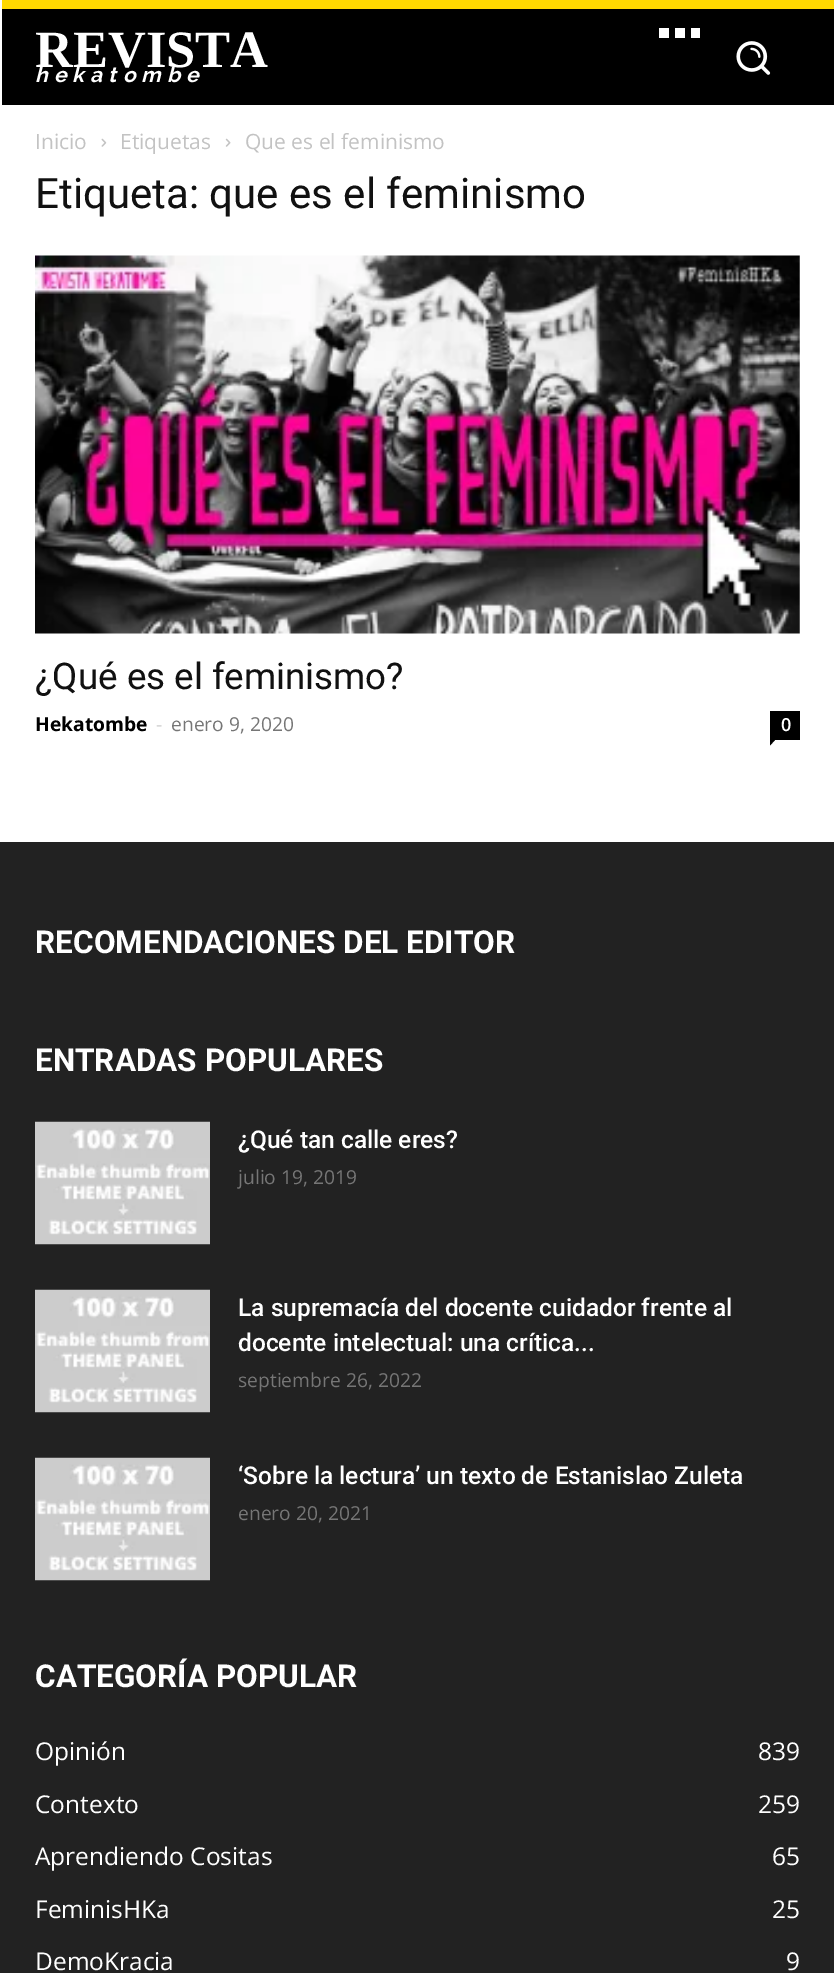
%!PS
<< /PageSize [834 1973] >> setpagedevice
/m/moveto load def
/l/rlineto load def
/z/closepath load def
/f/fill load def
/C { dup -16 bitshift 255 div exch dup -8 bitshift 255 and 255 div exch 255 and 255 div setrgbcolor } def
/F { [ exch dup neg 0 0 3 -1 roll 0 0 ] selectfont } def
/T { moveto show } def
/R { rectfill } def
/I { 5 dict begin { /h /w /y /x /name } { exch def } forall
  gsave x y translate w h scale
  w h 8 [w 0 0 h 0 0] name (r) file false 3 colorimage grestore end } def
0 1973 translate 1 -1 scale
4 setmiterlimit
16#FFFFFF C
0 0 834 1973 R
16#000000 C
2 9 832 96 R
16#FFD800 C
2 0 832 9 R
/LiberationSerif-Bold 52.5 F
16#FFFFFF C
(REVISTA) 35 67 T
/Raleway-BoldItalic 21 F
35 82 m 6.1 0 (hekatombe) ashow
659 28 m 10 0 l 0 10 l -10 0 l z 675 28 m 10 0 l 0 10 l -10 0 l z 691 28 m 9 0 l 0 10 l -9 0 l z f
(1.rgb) 736 41 35 34 I
/OpenSans-Regular 21 F
16#C3C3C3 C
(Inicio) 35 149 T
(2.rgb) 101 138 6 9 I
(Etiquetas) 120 149 T
(3.rgb) 225 138 6 9 I
(Que es el feminismo) 245 149 T
/Roboto-Regular 42 F
16#111111 C
(Etiqueta: que es el feminismo) 35 208 T
(4.rgb) 35 255 765 379 I
/Roboto-Regular 36.75 F
(¿Qué es el feminismo?) 35 689 T
/OpenSans-Bold 19.25 F
16#000000 C
(Hekatombe) 35 731 T
/OpenSans-Regular 19.25 F
16#CCCCCC C
(-) 156 731 T
16#767676 C
(enero 9, 2020) 171 731 T
16#000000 C
770 711 30 29 R
/OpenSans-SemiBold 18 F
16#FFFFFF C
(0) 781 731 T
16#000000 C
770 740 m 5 0 l -5 5.5 l z f
16#222222 C
0 842 834 1131 R
/Roboto-Bold 31.5 F
16#FFFFFF C
(RECOMENDACIONES DEL EDITOR) 35 953 T
(ENTRADAS POPULARES) 35 1071 T
(5.rgb) 35 1121 175 124 I
/Roboto-Medium 24.5 F
(¿Qué tan calle eres?) 238 1148 T
/OpenSans-Regular 19.25 F
16#767676 C
(julio 19, 2019) 238 1184 T
(6.rgb) 35 1289 175 124 I
/Roboto-Medium 24.5 F
16#FFFFFF C
(La supremacía del docente cuidador frente al) 238 1316 T
(docente intelectual: una crítica...) 238 1351 T
/OpenSans-Regular 19.25 F
16#767676 C
(septiembre 26, 2022) 238 1387 T
(5.rgb) 35 1457 175 124 I
/Roboto-Medium 24.5 F
16#FFFFFF C
(‘Sobre la lectura’ un texto de Estanislao Zuleta) 238 1484 T
/OpenSans-Regular 19.25 F
16#767676 C
(enero 20, 2021) 238 1520 T
/Roboto-Bold 31.5 F
16#FFFFFF C
(CATEGORÍA POPULAR) 35 1687 T
/OpenSans-Regular 24.5 F
(Opinión) 35 1760 T
(839) 758 1760 T
(Contexto) 35 1813 T
(259) 758 1813 T
(Aprendiendo Cositas) 35 1865 T
(65) 772 1865 T
(FeminisHKa) 35 1918 T
(25) 772 1918 T
(DemoKracia) 35 1970 T
(9) 786 1970 T
showpage
